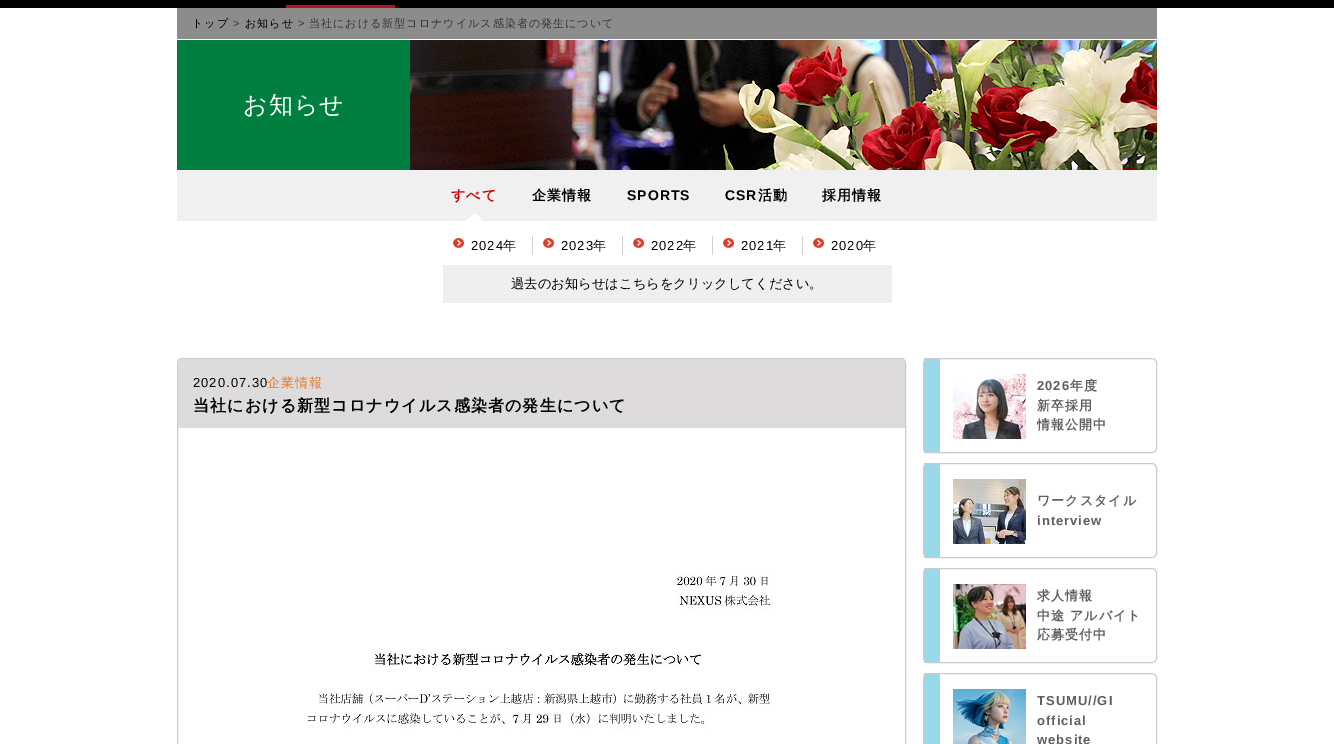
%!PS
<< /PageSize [1334 744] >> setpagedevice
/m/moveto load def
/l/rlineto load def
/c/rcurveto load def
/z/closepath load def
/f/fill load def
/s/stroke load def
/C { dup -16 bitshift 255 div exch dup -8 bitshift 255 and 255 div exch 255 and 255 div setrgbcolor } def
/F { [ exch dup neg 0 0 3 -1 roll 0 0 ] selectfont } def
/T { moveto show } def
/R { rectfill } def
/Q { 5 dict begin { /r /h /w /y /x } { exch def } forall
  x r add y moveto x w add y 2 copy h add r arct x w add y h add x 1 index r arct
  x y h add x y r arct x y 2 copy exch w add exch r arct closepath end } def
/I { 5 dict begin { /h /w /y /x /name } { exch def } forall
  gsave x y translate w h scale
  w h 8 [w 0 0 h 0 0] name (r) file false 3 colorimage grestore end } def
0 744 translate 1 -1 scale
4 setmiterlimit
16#FFFFFF C
0 0 1334 744 R
16#000000 C
0 0 1334 8 R
16#BF1019 C
286 5 109 3 R
16#8C8C8C C
177 8 980 31 R
/WenQuanYiZenHei-Medium 11.05 F
16#000000 C
192 27 m 1 0 (トップ) ashow
/LiberationSans-Regular 11.05 F
16#363636 C
233 27 m 1 0 (>) ashow
/WenQuanYiZenHei-Medium 11.05 F
16#000000 C
245 27 m 1 0 (お知らせ) ashow
/LiberationSans-Regular 11.05 F
16#363636 C
298 27 m 1 0 (>) ashow
/WenQuanYiZenHei-Medium 11.05 F
309 27 m 1 0 (当社における新型コロナウイルス感染者の発生について) ashow
16#017F40 C
177 40 233 130 R
/WenQuanYiZenHei-Medium 24 F
16#FFFFFF C
243 113 m 1 0 (お知らせ) ashow
(1.rgb) 410 40 747 130 I
16#F0F0F0 C
177 170 980 51 R
(2.rgb) 466 213 17 8 I
/WenQuanYiZenHei-Bold 14 F
16#CE0000 C
451 200 m 1 0 (すべて) ashow
16#000000 C
532 200 m 1 0 (企業情報) ashow
/LiberationSans-Bold 14 F
627 200 m 1 0 (SPORTS) ashow
725 200 m 1 0 (CSR) ashow
/WenQuanYiZenHei-Bold 14 F
758 200 m 1 0 (活動) ashow
822 200 m 1 0 (採用情報) ashow
16#D0D0D0 C
532 236 1 19 R
(3.rgb) 453 238 11 10 I
/LiberationSans-Regular 13 F
16#000000 C
471 250 m 1 0 (2024) ashow
/WenQuanYiZenHei-Medium 13 F
503 250 m 1 0 (年) ashow
16#D0D0D0 C
622 236 1 19 R
(4.rgb) 543 238 11 10 I
/LiberationSans-Regular 13 F
16#000000 C
561 250 m 1 0 (2023) ashow
/WenQuanYiZenHei-Medium 13 F
593 250 m 1 0 (年) ashow
16#D0D0D0 C
712 236 1 19 R
(3.rgb) 633 238 11 10 I
/LiberationSans-Regular 13 F
16#000000 C
651 250 m 1 0 (2022) ashow
/WenQuanYiZenHei-Medium 13 F
683 250 m 1 0 (年) ashow
16#D0D0D0 C
802 236 1 19 R
(3.rgb) 723 238 11 10 I
/LiberationSans-Regular 13 F
16#000000 C
741 250 m 1 0 (2021) ashow
/WenQuanYiZenHei-Medium 13 F
773 250 m 1 0 (年) ashow
(4.rgb) 813 238 11 10 I
/LiberationSans-Regular 13 F
831 250 m 1 0 (2020) ashow
/WenQuanYiZenHei-Medium 13 F
863 250 m 1 0 (年) ashow
16#EFEFEF C
443 265 449 38 R
/WenQuanYiZenHei-Medium 13.3 F
16#000000 C
(過去のお知らせはこちらをクリックしてください。) 511 288 T
16#CCCCCC C
177.5 358.5 728 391 4.5 Q s
16#DDDBDC C
182 359 m 719 0 l 2 0 4 2 4 4 c 0 65 l -727 0 l 0 -65 l 0 -2 2 -4 4 -4 c z f
/LiberationSans-Regular 13 F
16#000000 C
193 387 m 1 0 (2020.07.30) ashow
/WenQuanYiZenHei-Medium 13 F
16#E57B2E C
267 387 m 1 0 (企業情報) ashow
/WenQuanYiZenHei-Bold 16.1 F
16#000000 C
193 411 m 1 0 (当社における新型コロナウイルス感染者の発生について) ashow
(5.rgb) 303 571 470 160 I
16#99D9EA C
924 358 16 95 R
16#CCCCCC C
923.5 358.5 233 94 4.5 Q s
(6.rgb) 953 374 73 65 I
/LiberationSans-Bold 13 F
16#605F5F C
1037 390 m 1 0 (2026) ashow
/WenQuanYiZenHei-Bold 13 F
1070 390 m 1 0 (年度) ashow
1037 410 m 1 0 (新卒採用) ashow
1037 429 m 1 0 (情報公開中) ashow
16#99D9EA C
924 463 16 95 R
16#CCCCCC C
923.5 463.5 233 94 4.5 Q s
(7.rgb) 953 479 73 65 I
16#605F5F C
1037 505 m 1 0 (ワークスタイル) ashow
/LiberationSans-Bold 13 F
1037 525 m 1 0 (interview) ashow
16#99D9EA C
924 568 16 95 R
16#CCCCCC C
923.5 568.5 233 94 4.5 Q s
(8.rgb) 953 584 73 65 I
/WenQuanYiZenHei-Bold 13 F
16#605F5F C
1037 600 m 1 0 (求人情報) ashow
1037 620 m 1 0 (中途 アルバイト) ashow
1037 639 m 1 0 (応募受付中) ashow
16#99D9EA C
924 673 16 71 R
16#CCCCCC C
923.5 673.5 233 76 4.5 Q s
(9.rgb) 953 689 73 55 I
/LiberationSans-Bold 13 F
16#605F5F C
1037 705 m 1 0 (TSUMU//GI) ashow
1037 725 m 1 0 (official) ashow
1037 744 m 1 0 (website) ashow
showpage
